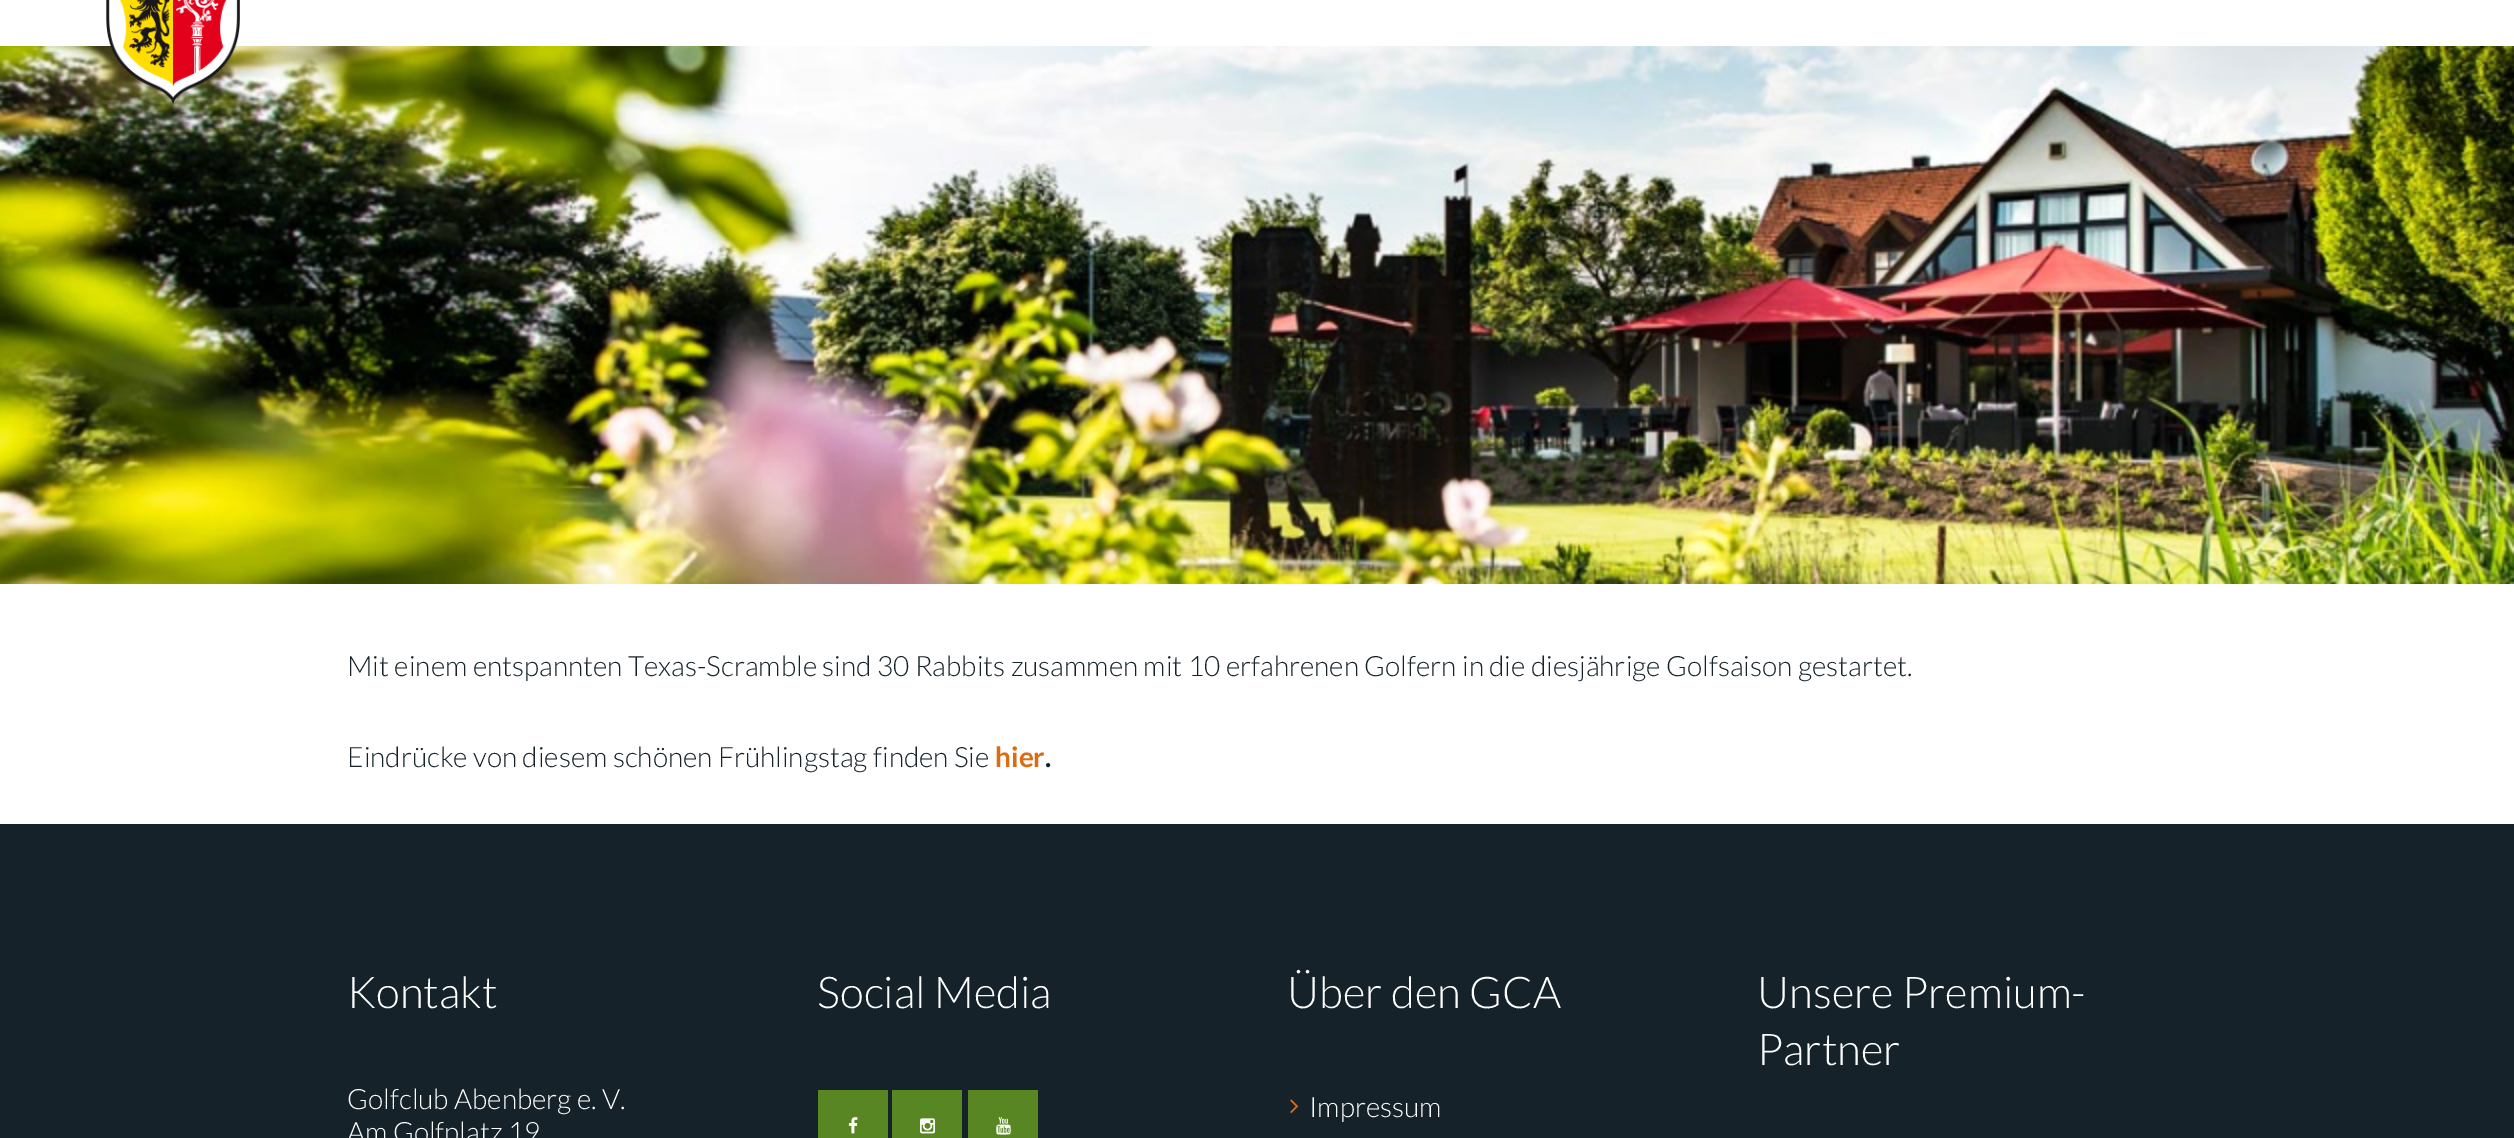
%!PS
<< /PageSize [2514 1138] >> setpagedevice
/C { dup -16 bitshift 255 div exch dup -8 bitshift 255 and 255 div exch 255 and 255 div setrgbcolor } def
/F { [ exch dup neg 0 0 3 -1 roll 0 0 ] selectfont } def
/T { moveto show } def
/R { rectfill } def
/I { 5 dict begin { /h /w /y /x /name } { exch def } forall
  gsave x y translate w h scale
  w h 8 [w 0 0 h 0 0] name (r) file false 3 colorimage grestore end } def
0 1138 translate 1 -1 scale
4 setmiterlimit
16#FFFFFF C
0 0 2514 1138 R
(2.rgb) 0 46 2514 538 I
(1.rgb) 106 0 134 104 I
/Lato-Light 28 F
16#152229 C
(Mit einem entspannten Texas-Scramble sind 30 Rabbits zusammen mit 10 erfahrenen Golfern in die diesjährige Golfsaison gestartet.) 347 676 T
(Eindrücke von diesem schönen Frühlingstag finden Sie) 347 767 T
/Lato-Bold 28 F
16#DC6C12 C
(hier) 995 767 T
16#152229 C
(.) 1045 767 T
0 824 2514 314 R
/Lato-Light 43.75 F
16#FFFFFF C
(Kontakt) 347 1008 T
/Lato-Light 28 F
(Golfclub Abenberg e. V.) 347 1109 T
(Am Golfplatz 19) 347 1142 T
/Lato-Light 43.75 F
(Social Media) 817 1008 T
16#578622 C
818 1090 70 48 R
(3.rgb) 848 1117 10 17 I
892 1090 70 48 R
(4.rgb) 920 1118 15 16 I
968 1090 70 48 R
(5.rgb) 996 1117 15 18 I
16#FFFFFF C
(Über den GCA) 1287 1008 T
(6.rgb) 1290 1099 9 15 I
/Lato-Light 28 F
(Impressum) 1309 1117 T
/Lato-Light 43.75 F
(Unsere Premium-) 1757 1008 T
(Partner) 1757 1065 T
showpage
